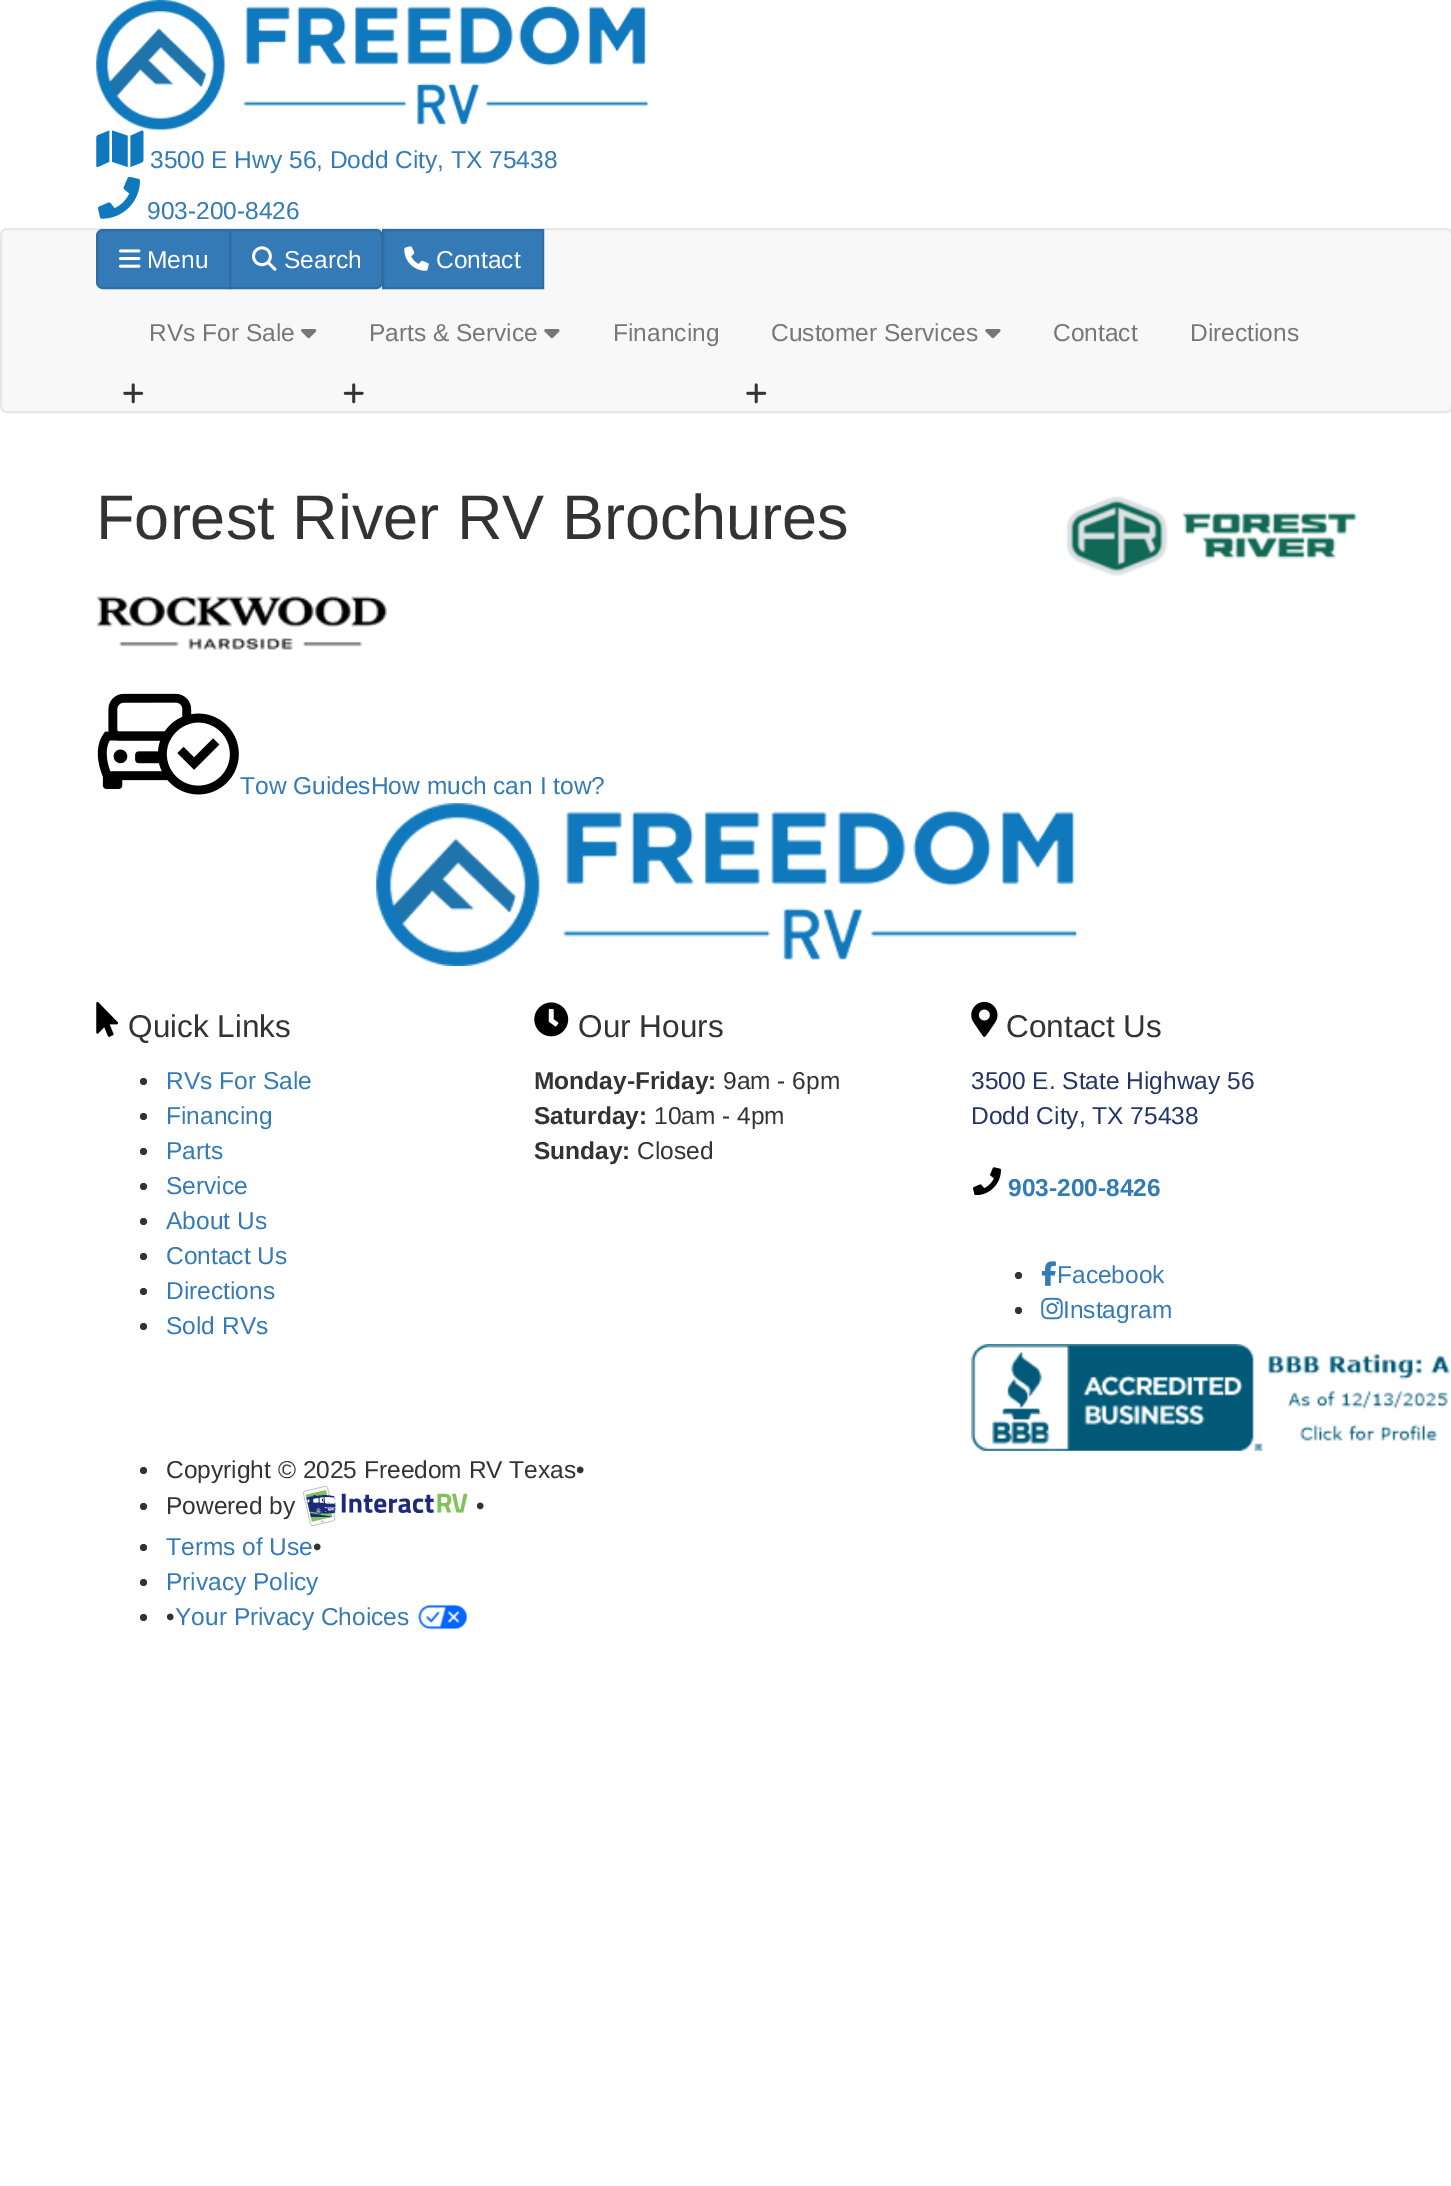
%!PS
<< /PageSize [1451 2186] >> setpagedevice
/m/moveto load def
/l/rlineto load def
/c/rcurveto load def
/z/closepath load def
/f/fill load def
/s/stroke load def
/q/gsave load def
/Q_/grestore load def
/w/setlinewidth load def
/C { dup -16 bitshift 255 div exch dup -8 bitshift 255 and 255 div exch 255 and 255 div setrgbcolor } def
/F { [ exch dup neg 0 0 3 -1 roll 0 0 ] selectfont } def
/T { moveto show } def
/R { rectfill } def
/O { newpath 0 360 arc closepath } def
/Q { 5 dict begin { /r /h /w /y /x } { exch def } forall
  x r add y moveto x w add y 2 copy h add r arct x w add y h add x 1 index r arct
  x y h add x y r arct x y 2 copy exch w add exch r arct closepath end } def
/I { 5 dict begin { /h /w /y /x /name } { exch def } forall
  gsave x y translate w h scale
  w h 8 [w 0 0 h 0 0] name (r) file false 3 colorimage grestore end } def
0 2186 translate 1 -1 scale
4 setmiterlimit
16#FFFFFF C
0 0 1451 2186 R
(1.rgb) 96 0 552 130 I
(2.rgb) 96 130 48 38 I
/LiberationSans-Regular 24.5 F
16#337AB7 C
(3500 E Hwy 56, Dodd City, TX 75438) 150 168 T
(3.rgb) 98 177 42 42 I
(903-200-8426) 147 219 T
16#F8F8F8 C
1 229 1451 183 6 Q q f Q_
16#E7E7E7 C
2 w
s
16#337AB7 C
103 230 m 127 0 l 0 58 l -127 0 l -3.5 0 -6 -2.5 -6 -6 c 0 -46 l 0 -3.5 2.5 -6 6 -6 c z q f Q_
16#2E6DA4 C
s
(4.rgb) 119 249 22 19 I
16#FFFFFF C
(Menu) 147 268 T
16#337AB7 C
383 230 m 160 0 l 0 58 l -160 0 l z q f Q_
16#2E6DA4 C
s
16#337AB7 C
230 230 m 146 0 l 3.5 0 6 2.5 6 6 c 0 46 l 0 3.5 -2.5 6 -6 6 c -146 0 l z q f Q_
16#2E6DA4 C
s
(5.rgb) 252 246 25 25 I
16#FFFFFF C
(Search) 284 268 T
(6.rgb) 404 246 25 25 I
(Contact) 436 268 T
16#777777 C
(RVs For Sale) 149 341 T
(7.rgb) 301 329 16 10 I
(8.rgb) 123 383 21 21 I
(Parts & Service) 369 341 T
(9.rgb) 544 329 16 10 I
(10.rgb) 343 383 21 21 I
(Financing) 613 341 T
(Customer Services) 771 341 T
(9.rgb) 985 329 16 10 I
(8.rgb) 746 383 21 21 I
(Contact) 1053 341 T
(Directions) 1190 341 T
/LiberationSans-Regular 63 F
16#333333 C
(Forest River RV Brochures) 96 539 T
(11.rgb) 1066 496 291 80 I
(12.rgb) 96 596 291 54 I
(13.rgb) 97 693 142 102 I
/LiberationSans-Regular 24.5 F
16#337AB7 C
(Tow GuidesHow much can I tow?) 240 794 T
(14.rgb) 376 803 701 163 I
(15.rgb) 96 1001 22 36 I
/LiberationSans-Regular 31.5 F
16#333333 C
(Quick Links) 128 1037 T
143.5 1081.5 3.5 O f
/LiberationSans-Regular 24.5 F
16#337AB7 C
(RVs For Sale) 166 1089 T
16#333333 C
143.5 1116.5 3.5 O f
16#337AB7 C
(Financing) 166 1124 T
16#333333 C
143.5 1151.5 3.5 O f
16#337AB7 C
(Parts) 166 1159 T
16#333333 C
143.5 1186.5 3.5 O f
16#337AB7 C
(Service) 166 1194 T
16#333333 C
143.5 1221.5 3.5 O f
16#337AB7 C
(About Us) 166 1229 T
16#333333 C
143.5 1256.5 3.5 O f
16#337AB7 C
(Contact Us) 166 1264 T
16#333333 C
143.5 1291.5 3.5 O f
16#337AB7 C
(Directions) 166 1299 T
16#333333 C
143.5 1326.5 3.5 O f
16#337AB7 C
(Sold RVs) 166 1334 T
(16.rgb) 534 1002 35 35 I
/LiberationSans-Regular 31.5 F
16#333333 C
(Our Hours) 578 1037 T
/LiberationSans-Bold 24.5 F
(Monday-Friday:) 534 1089 T
/LiberationSans-Regular 24.5 F
(9am - 6pm) 723 1089 T
/LiberationSans-Bold 24.5 F
(Saturday:) 534 1124 T
/LiberationSans-Regular 24.5 F
(10am - 4pm) 654 1124 T
/LiberationSans-Bold 24.5 F
(Sunday:) 534 1159 T
/LiberationSans-Regular 24.5 F
(Closed) 637 1159 T
(17.rgb) 971 1001 27 36 I
/LiberationSans-Regular 31.5 F
(Contact Us) 1006 1037 T
/LiberationSans-Regular 24.5 F
16#233568 C
(3500 E. State Highway 56) 971 1089 T
(Dodd City, TX 75438) 971 1124 T
(18.rgb) 973 1167 28 28 I
/LiberationSans-Bold 24.5 F
16#337AB7 C
(903-200-8426) 1008 1196 T
16#333333 C
1018.5 1275.5 3.5 O f
(19.rgb) 1041 1261 15 25 I
/LiberationSans-Regular 24.5 F
16#337AB7 C
(Facebook) 1057 1283 T
16#333333 C
1018.5 1310.5 3.5 O f
(20.rgb) 1041 1297 22 23 I
16#337AB7 C
(Instagram) 1063 1318 T
(21.rgb) 971 1344 480 107 I
16#333333 C
143.5 1470.5 3.5 O f
(Copyright © 2025 Freedom RV Texas•) 166 1478 T
143.5 1506.5 3.5 O f
(Powered by) 166 1514 T
(22.rgb) 303 1486 165 40 I
(•) 476 1514 T
143.5 1547.5 3.5 O f
16#337AB7 C
(Terms of Use) 166 1555 T
16#333333 C
(•) 313 1555 T
143.5 1582.5 3.5 O f
16#337AB7 C
(Privacy Policy) 166 1590 T
16#333333 C
143.5 1617.5 3.5 O f
(•) 166 1625 T
16#337AB7 C
(Your Privacy Choices) 175 1625 T
(23.rgb) 418 1604 50 26 I
showpage
